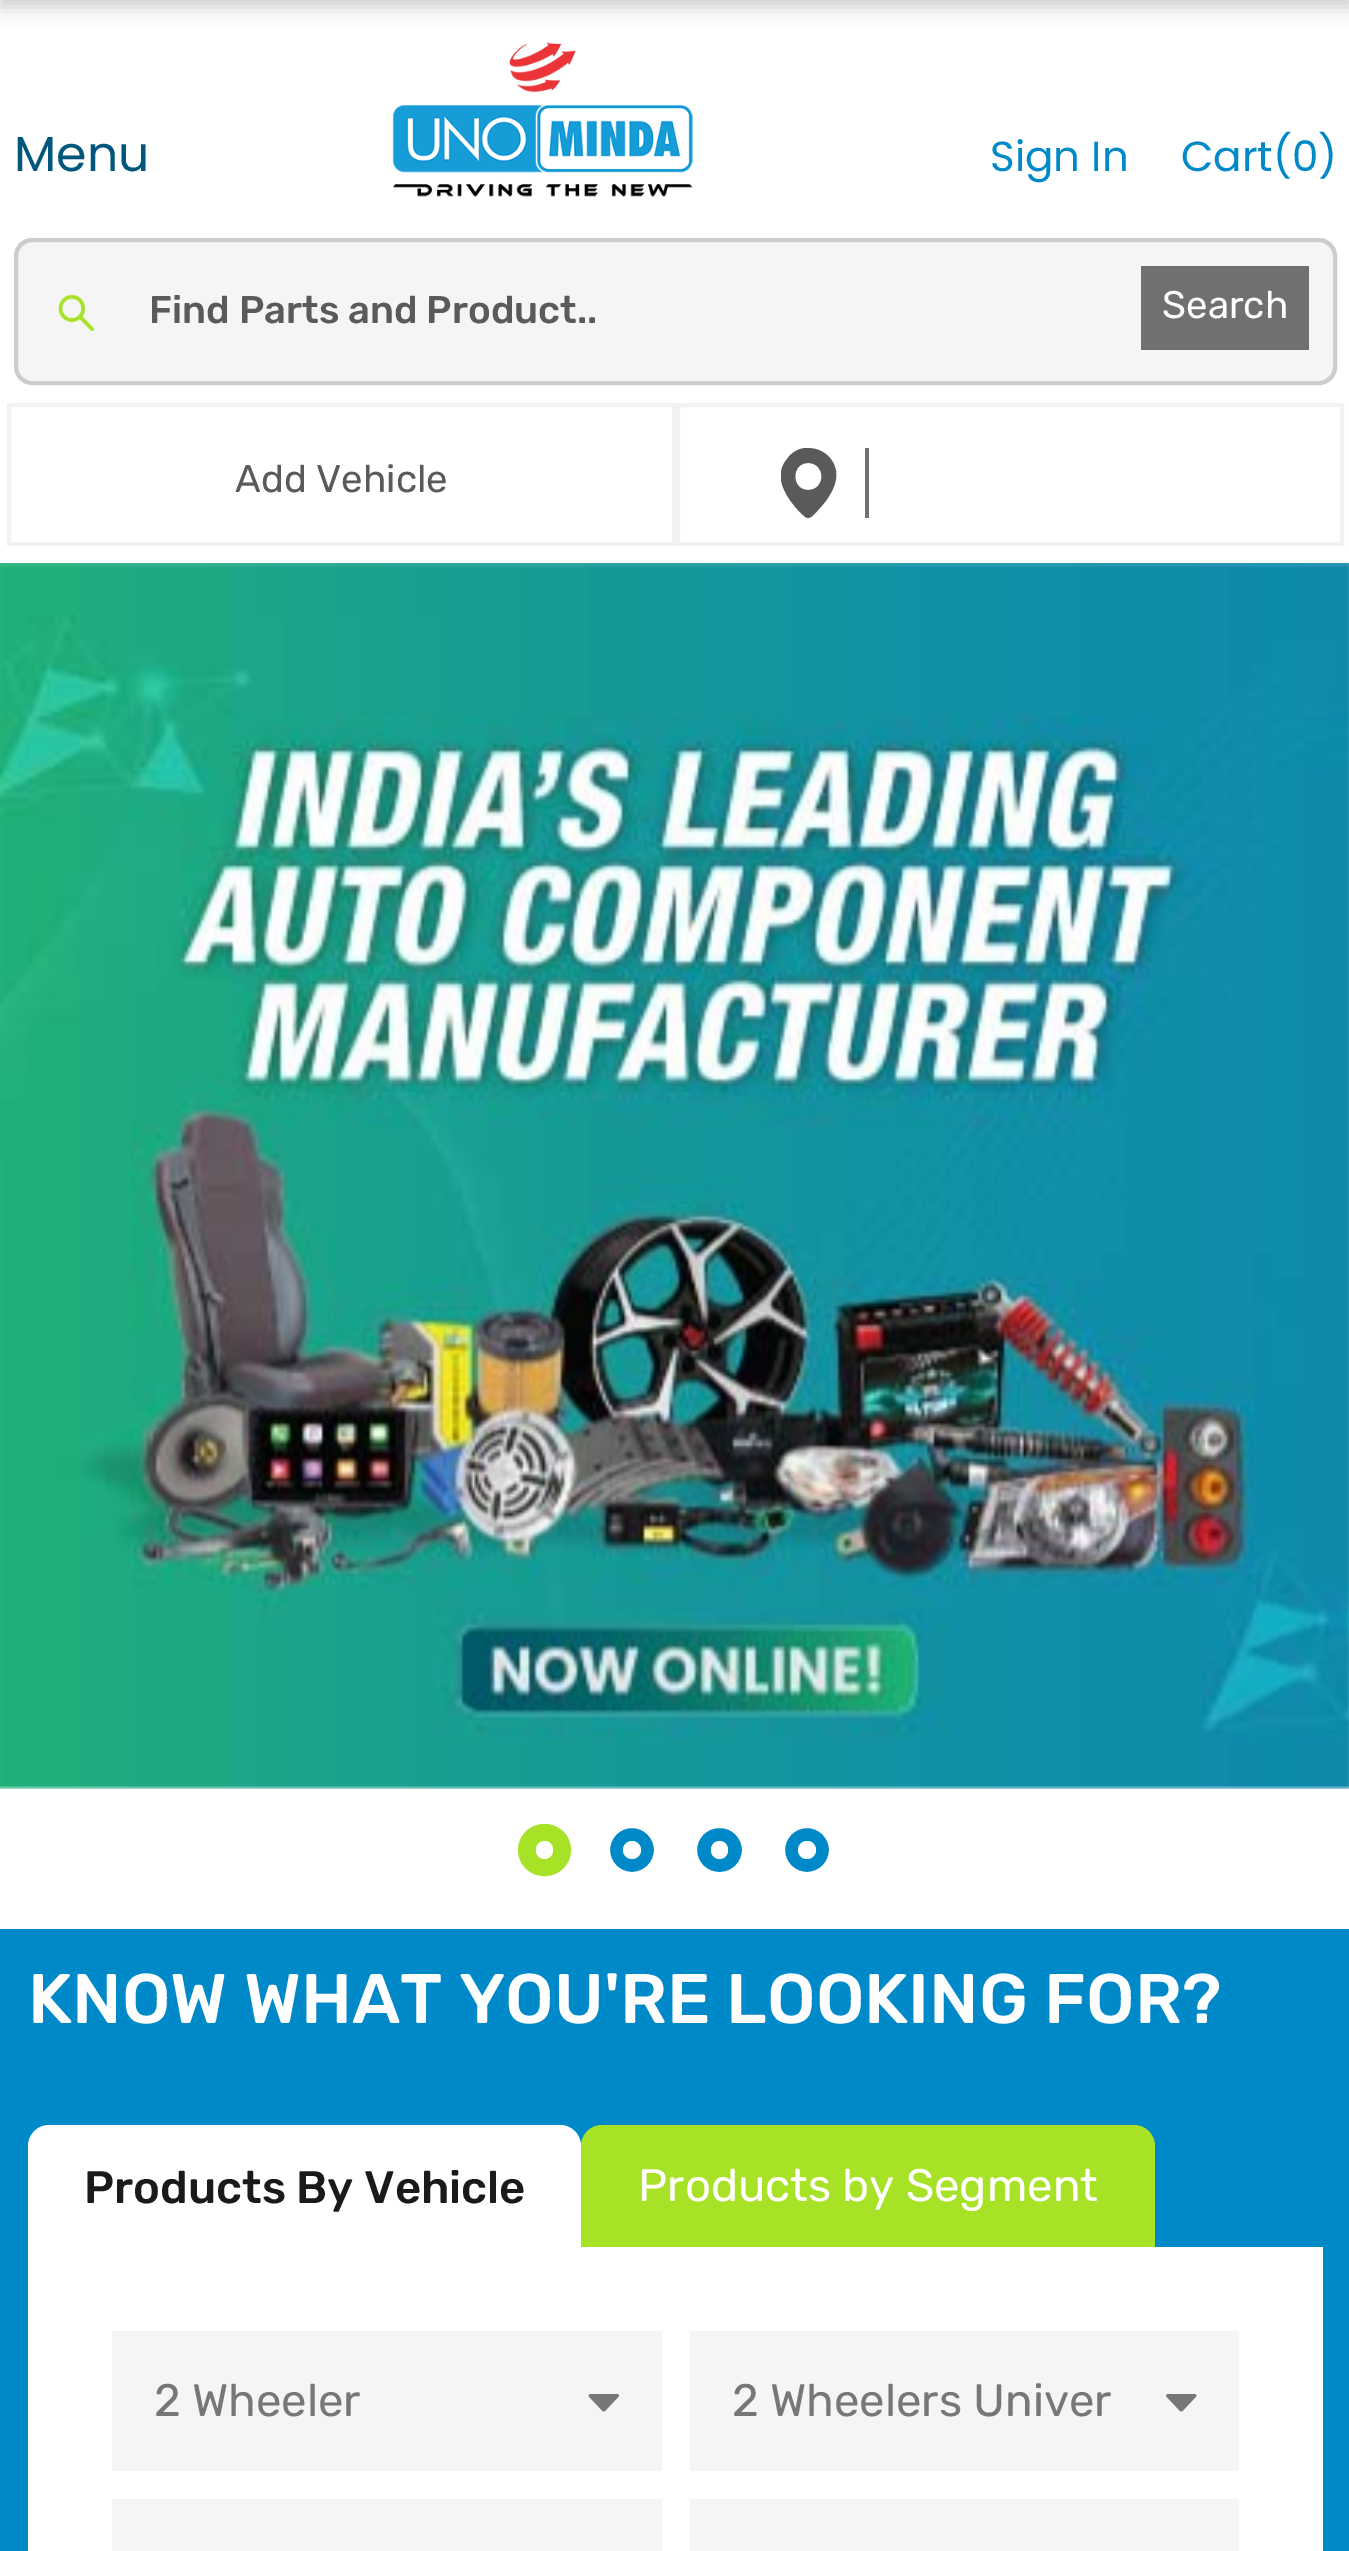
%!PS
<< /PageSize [1349 2551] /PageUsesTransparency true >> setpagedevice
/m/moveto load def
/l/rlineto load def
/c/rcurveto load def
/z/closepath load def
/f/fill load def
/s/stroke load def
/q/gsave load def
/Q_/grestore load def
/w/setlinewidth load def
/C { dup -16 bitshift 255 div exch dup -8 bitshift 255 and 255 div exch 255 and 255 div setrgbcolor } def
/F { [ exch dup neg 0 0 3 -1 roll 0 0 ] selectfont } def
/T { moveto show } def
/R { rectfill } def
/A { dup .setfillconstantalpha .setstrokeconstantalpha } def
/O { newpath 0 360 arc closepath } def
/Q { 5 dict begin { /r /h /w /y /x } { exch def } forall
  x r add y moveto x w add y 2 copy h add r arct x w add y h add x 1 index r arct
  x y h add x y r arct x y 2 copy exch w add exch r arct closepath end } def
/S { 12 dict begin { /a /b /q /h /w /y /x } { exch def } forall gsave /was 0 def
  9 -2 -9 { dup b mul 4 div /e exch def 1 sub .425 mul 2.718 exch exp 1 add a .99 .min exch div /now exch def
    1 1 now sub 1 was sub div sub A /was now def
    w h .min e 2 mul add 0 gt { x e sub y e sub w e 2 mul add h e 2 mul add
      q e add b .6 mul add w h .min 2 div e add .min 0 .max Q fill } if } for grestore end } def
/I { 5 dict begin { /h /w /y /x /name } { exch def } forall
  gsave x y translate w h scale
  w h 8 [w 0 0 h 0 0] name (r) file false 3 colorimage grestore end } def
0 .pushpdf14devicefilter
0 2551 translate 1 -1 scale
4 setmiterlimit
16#FFFFFF C
0 0 1349 2551 R
16#000000 C
0 -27 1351 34 0 9 .2 S
/Poppins-Regular 49 F
16#00567B C
(Menu) 14 171 T
(1.rgb) 392 42 301 155 I
/Poppins-Regular 42 F
16#0089C8 C
(Sign In) 990 171 T
(Cart\(0\)) 1181 171 T
16#F5F5F5 C
18 242 1316 140 14 Q f
(2.rgb) 58 294 37 38 I
16#CCCCCC C
4 w
16 240 1319 143 16 Q s
/Rubik-Medium 38.5 F
16#5A5A5A C
(Find Parts and Product..) 149 323 T
16#707070 C
1141 266 168 84 R
/Rubik-Regular 38.5 F
16#FFFFFF C
(Search) 1162 318 T
16#F2F2F2 C
9 405 665 139 rectstroke
16#5A5A5A C
(Add Vehicle) 235 492 T
16#F2F2F2 C
678 405 664 139 rectstroke
16#707070 C
865 448 4 70 R
q
781 448 56 70 rectclip
16#5A5A5A C
807 448 m -8 0 -15 4 -20 11 c -14 17 -2 36 10 50 c 2 2 8 9 11 9 c 4 0 9 -7 11 -9 c 13 -14 25 -34 11 -51 c -6 -7 -14 -10 -23 -10 c z 808 490 m -17 0 -17 -27 0 -27 c 18 0 18 27 0 27 c z f
Q_
(3.rgb) 0 563 1349 1226 I
16#A8E227 C
520 1826 49 48 24 Q q f Q_
s
16#FFFFFF C
536 1841 17 18 8.5 Q f
16#0089C8 C
632 1850 24 O q f Q_
16#FFFFFF C
s
632 1850 9 O f
16#0089C8 C
695 1826 49 48 24 Q q f Q_
16#FFFFFF C
s
711 1841 17 18 8.5 Q f
16#0089C8 C
807 1850 24 O q f Q_
16#FFFFFF C
s
807 1850 9 O f
16#0089C8 C
0 1929 1349 622 R
/Rubik-Medium 70 F
16#FFFFFF C
(KNOW WHAT YOU'RE LOOKING FOR?) 28 2023 T
28 2247 1295 304 R
49 2125 m 511 0 l 11.5 0 21 9.5 21 21 c 0 105 l -553 0 l 0 -105 l 0 -11.5 9.5 -21 21 -21 c z f
/Rubik-Medium 45.5 F
16#1A1A1A C
(Products By Vehicle) 84 2203 T
16#A8E227 C
602 2125 m 532 0 l 11.5 0 21 9.5 21 21 c 0 105 l -574 0 l 0 -105 l 0 -11.5 9.5 -21 21 -21 c z f
16#FFFFFF C
581 2247 574 4 R
/Rubik-Regular 45.5 F
(Products by Segment) 638 2201 T
16#F5F5F5 C
112 2331 550 140 R
(4.rgb) 588 2394 31 18 I
16#777777 C
(2 Wheeler) 154 2416 T
16#F5F5F5 C
690 2331 549 140 R
(5.rgb) 1166 2394 31 18 I
16#777777 C
(2 Wheelers Univer) 732 2416 T
16#F5F5F5 C
112 2499 550 52 R
690 2499 549 52 R
.poppdf14devicefilter showpage
